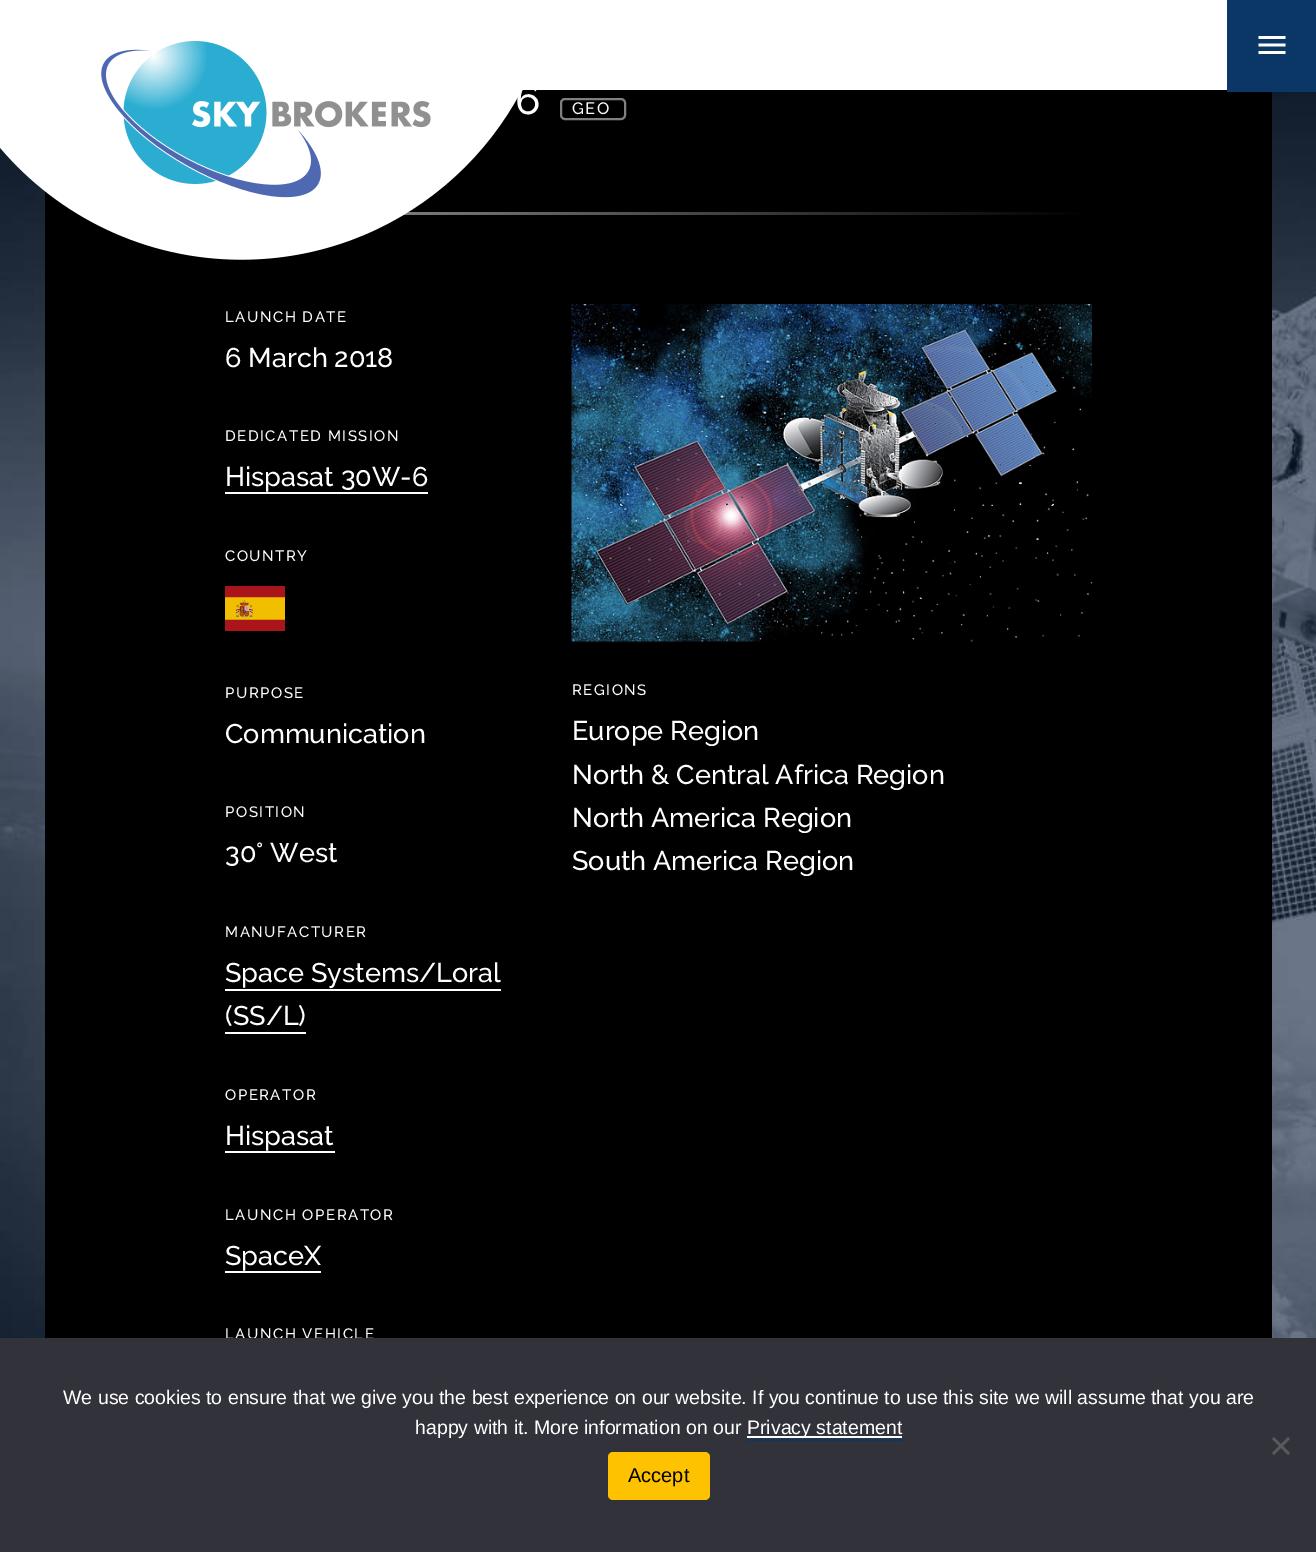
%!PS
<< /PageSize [1316 1552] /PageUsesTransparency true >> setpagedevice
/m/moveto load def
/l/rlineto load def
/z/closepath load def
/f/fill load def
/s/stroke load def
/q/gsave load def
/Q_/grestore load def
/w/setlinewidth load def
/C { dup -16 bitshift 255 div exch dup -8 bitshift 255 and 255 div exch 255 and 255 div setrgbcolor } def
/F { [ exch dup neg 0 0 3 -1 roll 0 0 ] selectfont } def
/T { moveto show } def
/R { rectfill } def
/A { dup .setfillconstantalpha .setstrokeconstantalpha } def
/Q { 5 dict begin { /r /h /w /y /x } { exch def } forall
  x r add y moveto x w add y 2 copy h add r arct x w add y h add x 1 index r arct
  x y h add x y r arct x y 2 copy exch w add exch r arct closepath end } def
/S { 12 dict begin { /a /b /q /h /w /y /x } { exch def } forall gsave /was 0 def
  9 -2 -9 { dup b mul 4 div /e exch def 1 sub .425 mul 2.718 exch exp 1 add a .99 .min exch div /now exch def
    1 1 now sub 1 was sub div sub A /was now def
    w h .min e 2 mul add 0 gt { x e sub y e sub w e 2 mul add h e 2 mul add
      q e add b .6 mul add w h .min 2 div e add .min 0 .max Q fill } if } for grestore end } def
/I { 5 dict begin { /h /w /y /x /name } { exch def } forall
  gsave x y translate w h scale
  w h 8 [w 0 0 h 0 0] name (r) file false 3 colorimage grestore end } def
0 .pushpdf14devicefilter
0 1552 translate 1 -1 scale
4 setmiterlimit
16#FFFFFF C
0 0 1316 1552 R
(3.rgb) 0 92 1316 1246 I
16#000000 C
45 90 1227 1248 R
16#808080 C
2 w
561 99 64 20 4 Q s
16#000000 C
0 3 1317 90 0 1.5 .1 S
16#FFFFFF C
0 1 1227 89 R
/Raleway-Medium 42 F
(6) 515 114 T
q 403 212 m 675 0 l 0 3 l -675 0 l z clip newpath
<< /ShadingType 2 /ColorSpace /DeviceRGB /Coords [225 213 1092 213] /Extend [true true] /Function << /FunctionType 2 /Domain [0 1] /C0 [.6 .6 .6] /C1 [0 0 0] /N 1 >> >> shfill Q_
(1.rgb) 0 41 522 219 I
16#0B3766 C
1227 0 89 92 R
(2.rgb) 1258 36 28 18 I
/Raleway-Medium 16.5 F
16#FFFFFF C
572 114 m 1.5 0 (GEO) ashow
/Raleway-Medium 15 F
225 322 m 1.5 0 (LAUNCH DATE) ashow
/Raleway-Medium 27 F
(6 March 2018) 225 367 T
/Raleway-Medium 15 F
225 441 m 1.5 0 (DEDICATED MISSION) ashow
/Raleway-Medium 27 F
(Hispasat 30W-6) 225 486 T
225 492 203 2 R
/Raleway-Medium 15 F
225 561 m 1.5 0 (COUNTRY) ashow
(4.rgb) 225 586 60 45 I
225 698 m 1.5 0 (PURPOSE) ashow
/Raleway-Medium 27 F
(Communication) 225 743 T
/Raleway-Medium 15 F
225 817 m 1.5 0 (POSITION) ashow
/Raleway-Medium 27 F
(30° West) 225 862 T
/Raleway-Medium 15 F
225 937 m 1.5 0 (MANUFACTURER) ashow
/Raleway-Medium 27 F
(Space Systems/Loral) 225 982 T
225 989 276 2 R
(\(SS/L\)) 225 1025 T
225 1032 81 2 R
/Raleway-Medium 15 F
225 1100 m 1.5 0 (OPERATOR) ashow
/Raleway-Medium 27 F
(Hispasat) 225 1145 T
225 1151 110 2 R
/Raleway-Medium 15 F
225 1220 m 1.5 0 (LAUNCH OPERATOR) ashow
/Raleway-Medium 27 F
(SpaceX) 225 1265 T
225 1271 96 2 R
/Raleway-Medium 15 F
225 1339 m 1.5 0 (LAUNCH VEHICLE) ashow
(5.rgb) 571 304 521 338 I
572 695 m 1.5 0 (REGIONS) ashow
/Raleway-Medium 27 F
(Europe Region) 572 740 T
(North & Central Africa Region) 572 784 T
(North America Region) 572 827 T
(South America Region) 572 870 T
16#32323A C
0 1338 1316 214 R
/LiberationSans-Regular 19.5 F
16#FFFFFF C
(We use cookies to ensure that we give you the best experience on our website. If you continue to use this site we will assume that you are) 63 1404 T
(happy with it. More information on our) 415 1434 T
747 1436 155 2 R
(Privacy statement) 747 1434 T
16#0B3766 C
747 1439 155 2 R
16#59595D C
1288 1437 m 2 2 l -16 16 l -2 -2 l z f
1272 1439 m 2 -2 l 16 16 l -2 2 l z f
16#FFC200 C
608 1452 102 48 5 Q f
/LiberationSans-Regular 20 F
16#000000 C
(Accept) 628 1482 T
.poppdf14devicefilter showpage
